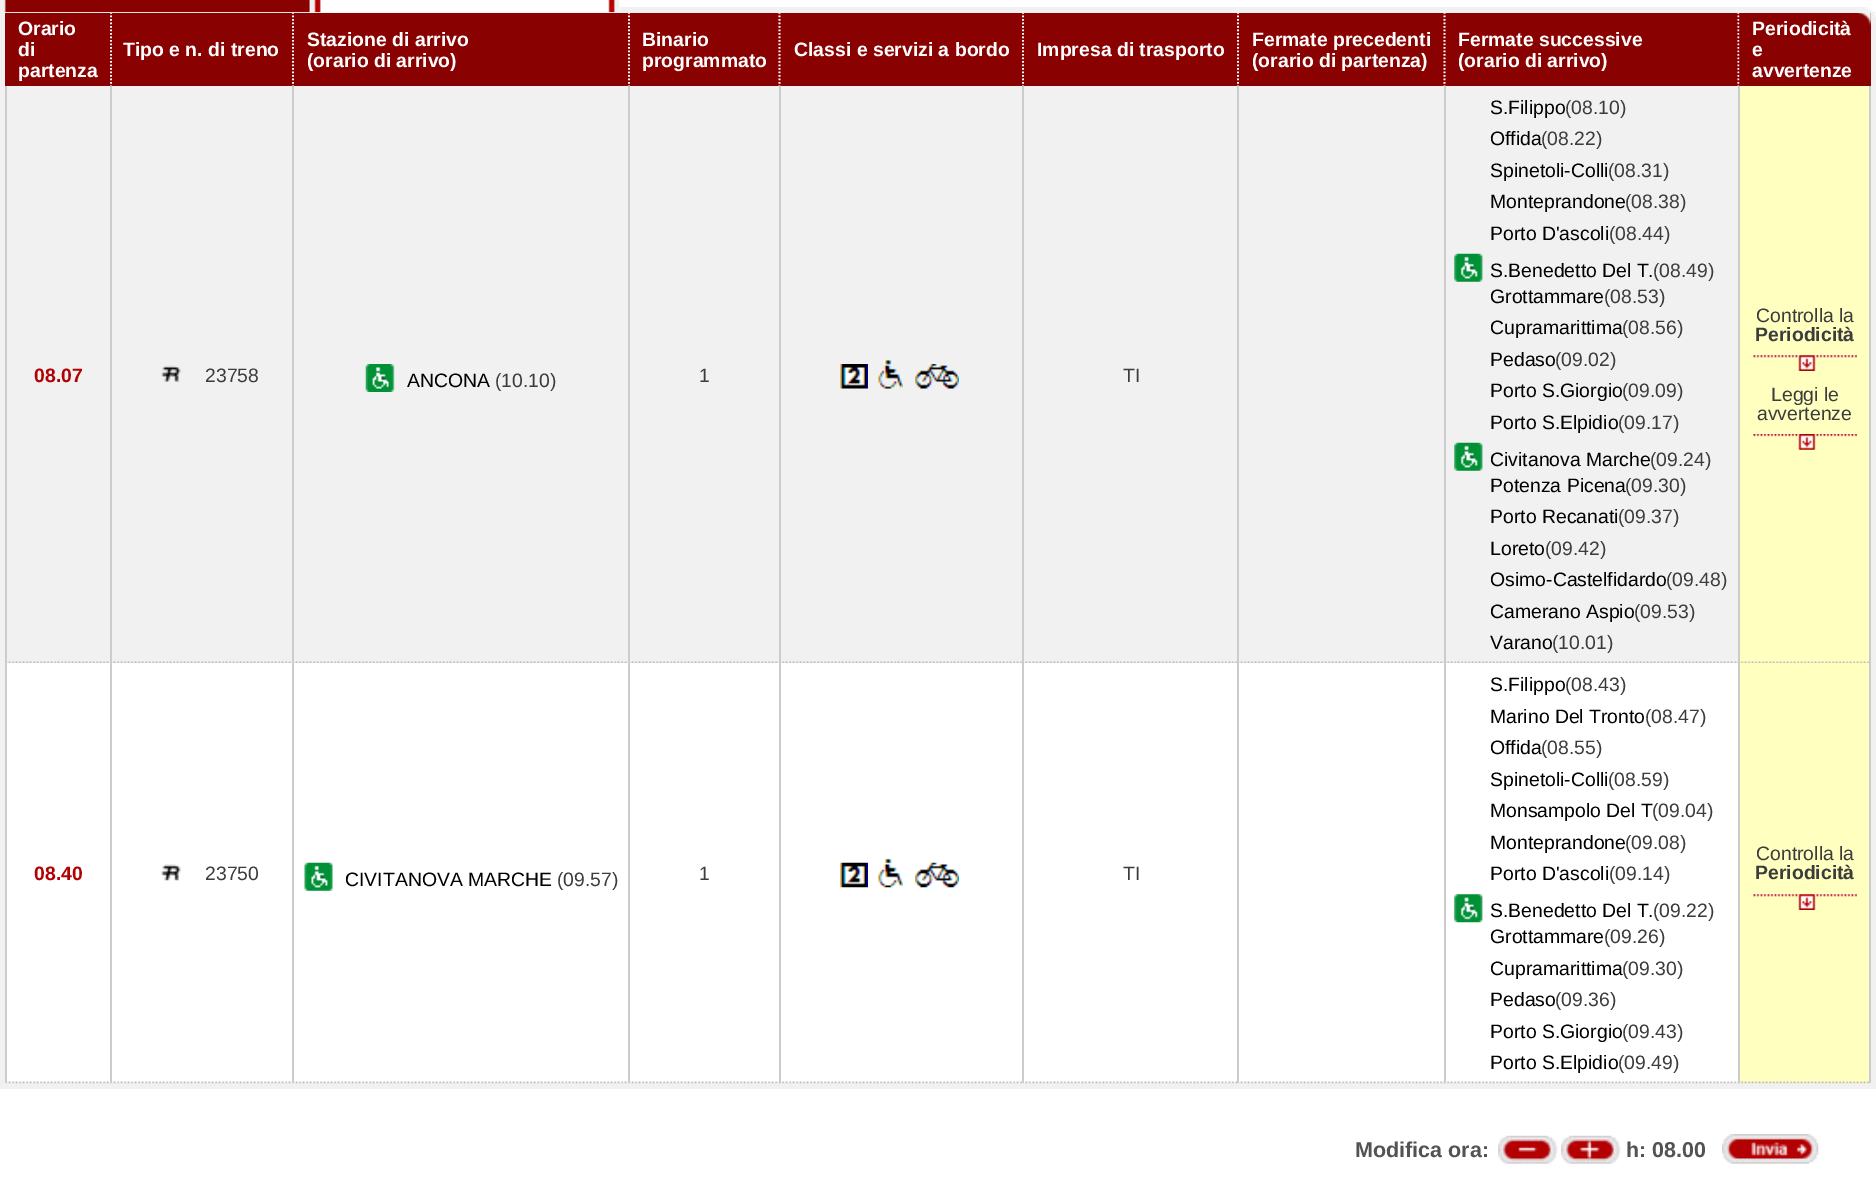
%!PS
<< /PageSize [1876 1200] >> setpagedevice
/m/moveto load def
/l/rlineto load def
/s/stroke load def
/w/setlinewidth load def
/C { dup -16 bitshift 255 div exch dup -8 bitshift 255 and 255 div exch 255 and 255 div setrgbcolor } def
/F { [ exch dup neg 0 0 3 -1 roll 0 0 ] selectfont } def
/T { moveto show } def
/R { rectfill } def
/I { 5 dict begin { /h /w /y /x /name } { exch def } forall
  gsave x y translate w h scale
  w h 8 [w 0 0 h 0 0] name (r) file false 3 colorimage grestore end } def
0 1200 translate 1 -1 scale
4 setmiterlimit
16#FFFFFF C
0 0 1876 1200 R
16#F1F1F1 C
0 13 1876 1076 R
16#890101 C
5 13 1866 73 R
16#FFFFFF C
1.8 w
[1.75 1.75] 0 setdash
111 12 m 0 74 l s
293 12 m 0 74 l s
629 12 m 0 74 l s
779.5 12 m 0 74 l s
1023 12 m 0 74 l s
1238 12 m 0 74 l s
1444.5 12 m 0 74 l s
1738.5 12 m 0 74 l s
16#F1F1F1 C
0 7 1876 6 R
(1.rgb) 1866 7 10 5 I
(2.rgb) 0 0 310 11 I
(3.rgb) 4 0 306 13 I
16#FFFFFF C
619 0 1 12 R
(4.rgb) 309 0 311 13 I
(5.rgb) 1873 13 3 4 I
/LiberationSans-Bold 19.4 F
(Orario) 18 35 T
(di) 18 56 T
(partenza) 18 77 T
(Tipo e n. di treno) 123 56 T
(Stazione di arrivo) 307 46 T
(\(orario di arrivo\)) 307 67 T
(Binario) 642 46 T
(programmato) 642 67 T
(Classi e servizi a bordo) 794 56 T
(Impresa di trasporto) 1037 56 T
(Fermate precedenti) 1252 46 T
(\(orario di partenza\)) 1252 67 T
(Fermate successive) 1458 46 T
(\(orario di arrivo\)) 1458 67 T
(6.rgb) 1739 13 132 73 I
(Periodicità) 1752 35 T
(e) 1752 56 T
(avvertenze) 1752 77 T
(7.rgb) 7 661 103 2 I
16#CCCCCC C
110 86 2 577 R
5 86 2 577 R
16#B30002 C
(08.07) 34 382 T
(8.rgb) 112 661 180 2 I
16#CCCCCC C
292 86 2 577 R
(9.rgb) 161 365 20 17 I
/LiberationSans-Regular 19.4 F
16#3C3C3C C
(23758) 205 382 T
(10.rgb) 294 661 334 2 I
16#CCCCCC C
628 86 2 577 R
(11.rgb) 365 364 30 28 I
16#000000 C
(ANCONA) 407 387 T
16#3C3C3C C
(\(10.10\)) 495 387 T
(12.rgb) 630 661 149 2 I
16#CCCCCC C
779 86 2 577 R
16#3C3C3C C
(1) 699 382 T
(13.rgb) 780 661 242 2 I
16#CCCCCC C
1022 86 2 577 R
(14.rgb) 840 364 28 25 I
(15.rgb) 878 360 25 29 I
(16.rgb) 915 364 44 25 I
(17.rgb) 1024 661 213 2 I
1237 86 2 577 R
16#3C3C3C C
(TI) 1123 382 T
(18.rgb) 1239 661 205 2 I
16#CCCCCC C
1444 86 2 577 R
(19.rgb) 1445 661 293 2 I
1738 86 2 577 R
16#000000 C
(S.Filippo) 1490 114 T
16#3C3C3C C
(\(08.10\)) 1565 114 T
16#000000 C
(Offida) 1490 145 T
16#3C3C3C C
(\(08.22\)) 1541 145 T
16#000000 C
(Spinetoli-Colli) 1490 177 T
16#3C3C3C C
(\(08.31\)) 1608 177 T
16#000000 C
(Monteprandone) 1490 208 T
16#3C3C3C C
(\(08.38\)) 1625 208 T
16#000000 C
(Porto D'ascoli) 1490 240 T
16#3C3C3C C
(\(08.44\)) 1609 240 T
(20.rgb) 1454 253 29 29 I
16#000000 C
(S.Benedetto Del T.) 1490 277 T
16#3C3C3C C
(\(08.49\)) 1653 277 T
16#000000 C
(Grottammare) 1490 303 T
16#3C3C3C C
(\(08.53\)) 1604 303 T
16#000000 C
(Cupramarittima) 1490 334 T
16#3C3C3C C
(\(08.56\)) 1622 334 T
16#000000 C
(Pedaso) 1490 366 T
16#3C3C3C C
(\(09.02\)) 1555 366 T
16#000000 C
(Porto S.Giorgio) 1490 397 T
16#3C3C3C C
(\(09.09\)) 1622 397 T
16#000000 C
(Porto S.Elpidio) 1490 429 T
16#3C3C3C C
(\(09.17\)) 1618 429 T
(20.rgb) 1454 442 29 29 I
16#000000 C
(Civitanova Marche) 1490 466 T
16#3C3C3C C
(\(09.24\)) 1650 466 T
16#000000 C
(Potenza Picena) 1490 492 T
16#3C3C3C C
(\(09.30\)) 1625 492 T
16#000000 C
(Porto Recanati) 1490 523 T
16#3C3C3C C
(\(09.37\)) 1618 523 T
16#000000 C
(Loreto) 1490 555 T
16#3C3C3C C
(\(09.42\)) 1545 555 T
16#000000 C
(Osimo-Castelfidardo) 1490 586 T
16#3C3C3C C
(\(09.48\)) 1666 586 T
16#000000 C
(Camerano Aspio) 1490 618 T
16#3C3C3C C
(\(09.53\)) 1634 618 T
16#000000 C
(Varano) 1490 649 T
16#3C3C3C C
(\(10.01\)) 1552 649 T
16#FFFFC0 C
1740 86 129 997 R
(21.rgb) 1739 661 130 2 I
16#CCCCCC C
1869 86 2 577 R
16#3C3C3C C
(Controlla la) 1756 322 T
/LiberationSans-Bold 19.4 F
(Periodicità) 1755 341 T
(22.rgb) 1753 355 104 16 I
/LiberationSans-Regular 19.4 F
(Leggi le) 1771 401 T
(avvertenze) 1757 420 T
(23.rgb) 1753 434 104 16 I
16#FFFFFF C
7 663 103 420 R
(24.rgb) 5 1081 107 3 I
16#CCCCCC C
110 663 2 420 R
5 663 2 420 R
/LiberationSans-Bold 19.4 F
16#B30002 C
(08.40) 34 880 T
16#FFFFFF C
112 663 180 420 R
(25.rgb) 112 1081 182 3 I
16#CCCCCC C
292 663 2 420 R
(26.rgb) 160 864 21 17 I
/LiberationSans-Regular 19.4 F
16#3C3C3C C
(23750) 205 880 T
16#FFFFFF C
294 663 334 420 R
(27.rgb) 294 1081 336 3 I
16#CCCCCC C
628 663 2 420 R
(28.rgb) 304 862 29 29 I
16#000000 C
(CIVITANOVA MARCHE) 345 886 T
16#3C3C3C C
(\(09.57\)) 557 886 T
16#FFFFFF C
630 663 149 420 R
(29.rgb) 630 1081 151 3 I
16#CCCCCC C
779 663 2 420 R
16#3C3C3C C
(1) 699 880 T
16#FFFFFF C
781 663 241 420 R
(30.rgb) 780 1081 244 3 I
16#CCCCCC C
1022 663 2 420 R
(31.rgb) 840 862 28 26 I
(32.rgb) 878 858 25 30 I
(33.rgb) 915 862 44 26 I
16#FFFFFF C
1024 663 213 420 R
(34.rgb) 1024 1081 215 3 I
16#CCCCCC C
1237 663 2 420 R
16#3C3C3C C
(TI) 1123 880 T
16#FFFFFF C
1239 663 205 420 R
(35.rgb) 1239 1081 207 3 I
16#CCCCCC C
1444 663 2 420 R
16#FFFFFF C
1446 663 292 420 R
(36.rgb) 1445 1081 295 3 I
16#CCCCCC C
1738 663 2 420 R
16#000000 C
(S.Filippo) 1490 691 T
16#3C3C3C C
(\(08.43\)) 1565 691 T
16#000000 C
(Marino Del Tronto) 1490 723 T
16#3C3C3C C
(\(08.47\)) 1645 723 T
16#000000 C
(Offida) 1490 754 T
16#3C3C3C C
(\(08.55\)) 1541 754 T
16#000000 C
(Spinetoli-Colli) 1490 786 T
16#3C3C3C C
(\(08.59\)) 1608 786 T
16#000000 C
(Monsampolo Del T) 1490 817 T
16#3C3C3C C
(\(09.04\)) 1652 817 T
16#000000 C
(Monteprandone) 1490 849 T
16#3C3C3C C
(\(09.08\)) 1625 849 T
16#000000 C
(Porto D'ascoli) 1490 880 T
16#3C3C3C C
(\(09.14\)) 1609 880 T
(37.rgb) 1454 894 29 29 I
16#000000 C
(S.Benedetto Del T.) 1490 917 T
16#3C3C3C C
(\(09.22\)) 1653 917 T
16#000000 C
(Grottammare) 1490 943 T
16#3C3C3C C
(\(09.26\)) 1604 943 T
16#000000 C
(Cupramarittima) 1490 975 T
16#3C3C3C C
(\(09.30\)) 1622 975 T
16#000000 C
(Pedaso) 1490 1006 T
16#3C3C3C C
(\(09.36\)) 1555 1006 T
16#000000 C
(Porto S.Giorgio) 1490 1038 T
16#3C3C3C C
(\(09.43\)) 1622 1038 T
16#000000 C
(Porto S.Elpidio) 1490 1069 T
16#3C3C3C C
(\(09.49\)) 1618 1069 T
(38.rgb) 1739 1081 132 3 I
16#CCCCCC C
1869 663 2 420 R
16#3C3C3C C
(Controlla la) 1756 860 T
/LiberationSans-Bold 19.4 F
(Periodicità) 1755 879 T
(22.rgb) 1753 894 104 16 I
/LiberationSans-Bold 21.5 F
16#535353 C
(Modifica ora:) 1355 1157 T
(39.rgb) 1498 1135 60 29 I
(40.rgb) 1561 1135 60 29 I
(h: 08.00) 1626 1157 T
(41.rgb) 1722 1134 97 30 I
showpage
